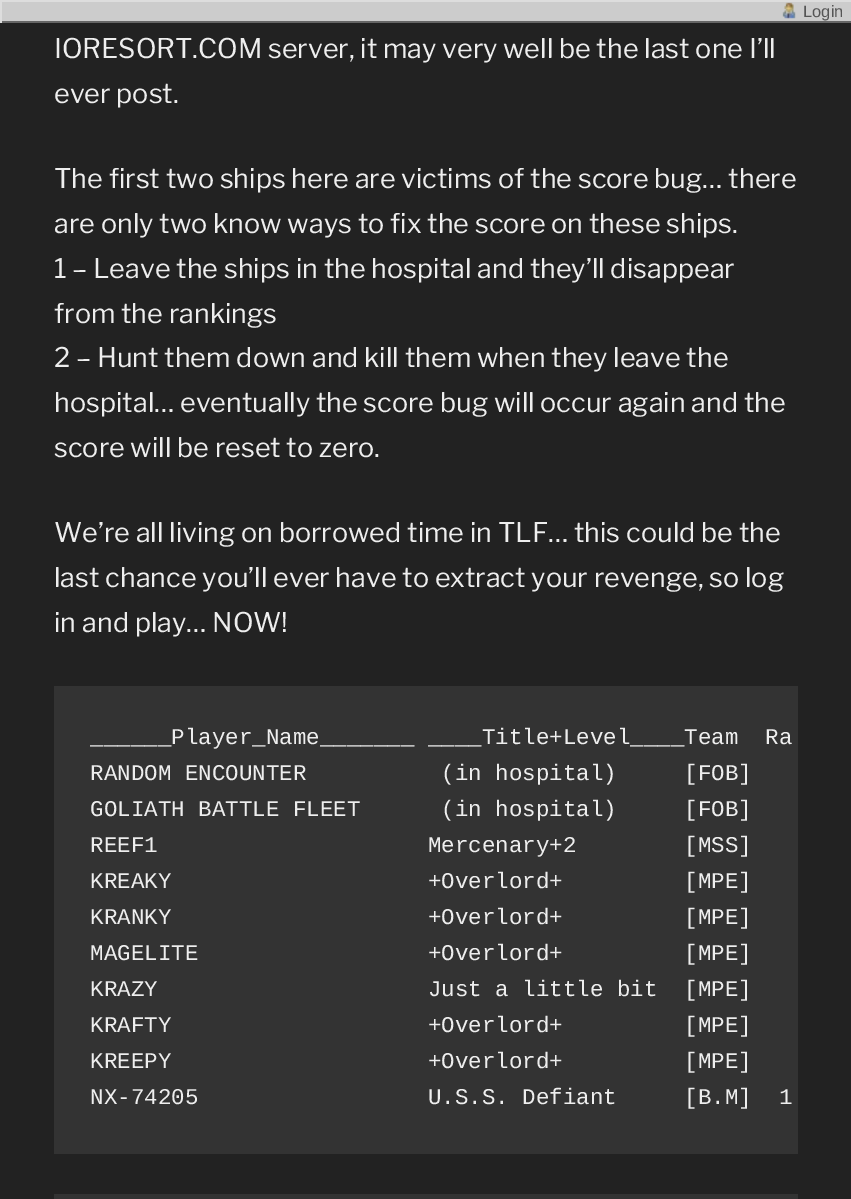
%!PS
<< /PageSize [851 1199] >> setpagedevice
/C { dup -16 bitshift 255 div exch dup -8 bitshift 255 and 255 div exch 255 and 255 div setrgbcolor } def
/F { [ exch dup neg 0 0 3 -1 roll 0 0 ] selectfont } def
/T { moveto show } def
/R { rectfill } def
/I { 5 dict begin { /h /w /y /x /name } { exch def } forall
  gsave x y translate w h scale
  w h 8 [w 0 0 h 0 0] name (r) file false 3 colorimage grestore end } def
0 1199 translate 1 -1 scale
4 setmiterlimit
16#222222 C
0 0 851 1199 R
16#CCCCCC C
2 2 849 19 R
16#DDDDDD C
0 0 851 2 R
16#666666 C
0 21 851 2 R
16#DDDDDD C
0 0 2 23 R
(1.rgb) 782 2 14 17 I
/LiberationSans-Regular 16.5 F
16#555555 C
(Login) 803 17 T
/LibreFranklin-Thin 27 F
16#EEEEEE C
(IORESORT.COM server, it may very well be the last one I’ll) 54 58 T
(ever post.) 54 103 T
(The first two ships here are victims of the score bug… there) 54 188 T
(are only two know ways to fix the score on these ships.) 54 233 T
(1 – Leave the ships in the hospital and they’ll disappear) 54 278 T
(from the rankings) 54 323 T
(2 – Hunt them down and kill them when they leave the) 54 367 T
(hospital… eventually the score bug will occur again and the) 54 412 T
(score will be reset to zero.) 54 457 T
(We’re all living on borrowed time in TLF… this could be the) 54 542 T
(last chance you’ll ever have to extract your revenge, so log) 54 587 T
(in and play… NOW!) 54 632 T
16#333333 C
54 686 744 468 R
/LiberationMono-Regular 22.5 F
16#EEEEEE C
(______Player_Name_______ ____Title+Level____Team  Ra) 90 744 T
(RANDOM ENCOUNTER          \(in hospital\)     [FOB]) 90 780 T
(GOLIATH BATTLE FLEET      \(in hospital\)     [FOB]) 90 816 T
(REEF1                    Mercenary+2        [MSS]) 90 852 T
(KREAKY                   +Overlord+         [MPE]) 90 888 T
(KRANKY                   +Overlord+         [MPE]) 90 924 T
(MAGELITE                 +Overlord+         [MPE]) 90 960 T
(KRAZY                    Just a little bit  [MPE]) 90 996 T
(KRAFTY                   +Overlord+         [MPE]) 90 1032 T
(KREEPY                   +Overlord+         [MPE]) 90 1068 T
(NX-74205                 U.S.S. Defiant     [B.M]  1) 90 1104 T
16#333333 C
54 1194 744 5 R
showpage
